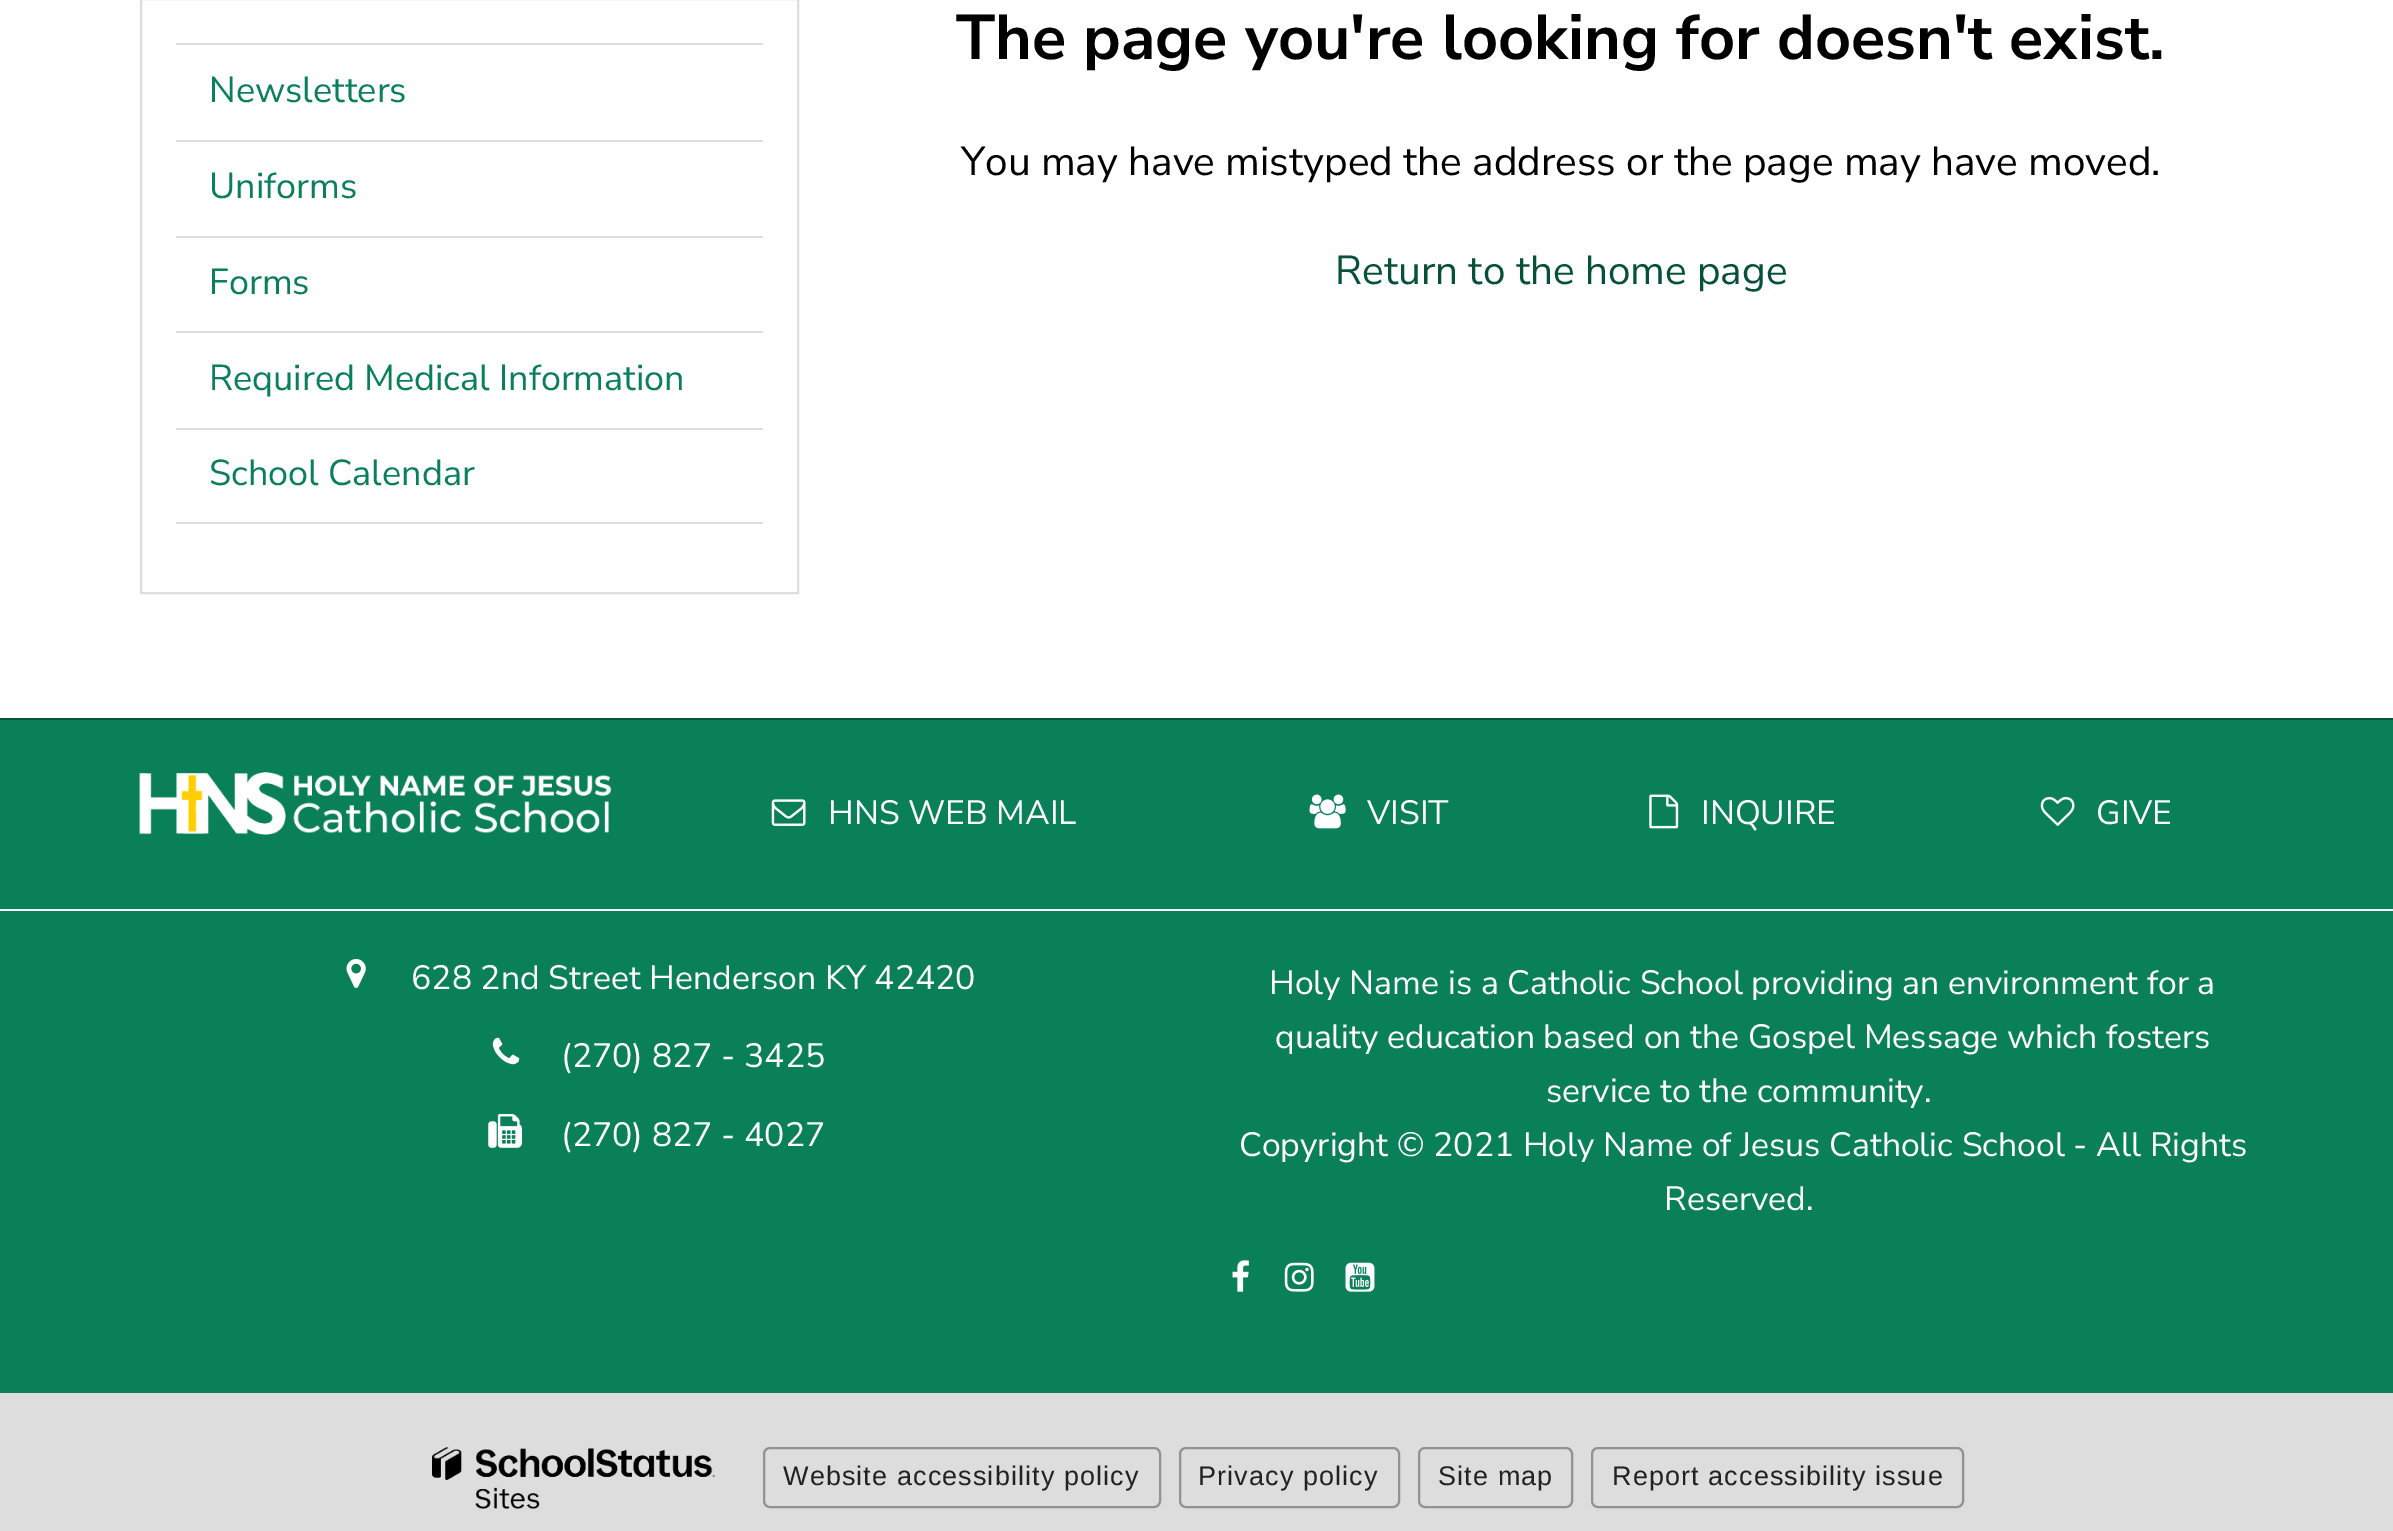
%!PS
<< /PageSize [2393 1531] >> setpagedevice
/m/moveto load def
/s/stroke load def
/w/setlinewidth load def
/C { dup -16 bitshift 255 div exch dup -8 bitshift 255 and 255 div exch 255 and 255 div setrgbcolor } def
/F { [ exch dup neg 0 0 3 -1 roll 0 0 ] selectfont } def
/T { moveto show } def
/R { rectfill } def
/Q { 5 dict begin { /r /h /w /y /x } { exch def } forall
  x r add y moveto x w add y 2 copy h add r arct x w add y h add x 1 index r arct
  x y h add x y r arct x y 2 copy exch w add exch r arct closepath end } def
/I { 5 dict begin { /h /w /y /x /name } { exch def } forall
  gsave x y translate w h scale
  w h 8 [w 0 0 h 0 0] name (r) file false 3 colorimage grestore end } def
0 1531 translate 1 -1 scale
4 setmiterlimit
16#FFFFFF C
0 0 2393 1531 R
16#DDDDDD C
2 w
141 -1 657 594 rectstroke
176 43 587 2 R
176 140 587 2 R
/NunitoSans-Regular 36 F
16#0A8059 C
(Newsletters) 209 102 T
16#DDDDDD C
176 236 587 2 R
16#0A8059 C
(Uniforms) 209 198 T
16#DDDDDD C
176 331 587 2 R
16#0A8059 C
(Forms) 209 294 T
16#DDDDDD C
176 428 587 2 R
16#0A8059 C
(Required Medical Information) 209 390 T
16#DDDDDD C
176 522 587 2 R
16#0A8059 C
(School Calendar) 209 485 T
/NunitoSans-Bold 63 F
16#000000 C
(The page you're looking for doesn't exist.) 956 59 T
/NunitoSans-Regular 40.5 F
(You may have mistyped the address or the page may have moved.) 961 175 T
16#065138 C
(Return to the home page) 1335 284 T
16#0A8059 C
0 720 2393 673 R
16#0A5138 C
0 718 2393 2 R
(1.rgb) 139 772 473 63 I
(2.rgb) 771 799 35 27 I
/NunitoSans-Regular 33.75 F
16#FFFFFF C
(HNS WEB MAIL) 828 824 T
(3.rgb) 1309 794 37 35 I
(VISIT) 1367 824 T
(4.rgb) 1649 794 30 35 I
(INQUIRE) 1701 824 T
(5.rgb) 2040 797 35 29 I
(GIVE) 2096 824 T
0 909 2393 2 R
(6.rgb) 346 959 20 29 I
(628 2nd Street Henderson KY 42420) 411 989 T
(7.rgb) 492 1037 28 28 I
(\(270\) 827 - 3425) 561 1067 T
(8.rgb) 488 1114 34 34 I
(\(270\) 827 - 4027) 561 1146 T
(Holy Name is a Catholic School providing an environment for a) 1269 994 T
(quality education based on the Gospel Message which fosters) 1275 1048 T
(service to the community.) 1546 1102 T
(Copyright © 2021 Holy Name of Jesus Catholic School - All Rights) 1239 1156 T
(Reserved.) 1664 1210 T
(9.rgb) 1232 1260 17 32 I
(10.rgb) 1284 1262 30 30 I
(11.rgb) 1345 1262 30 30 I
16#DDDDDD C
0 1393 2393 138 R
(12.rgb) 432 1447 283 62 I
16#929292 C
764 1448 396 59 6 Q s
/LiberationSans-Regular 27 F
16#222222 C
783 1485 m 1.1 0 (Website accessibility policy) ashow
16#929292 C
1180 1448 219 59 6 Q s
16#222222 C
1198 1485 m 1.1 0 (Privacy policy) ashow
16#929292 C
1419 1448 153 59 6 Q s
16#222222 C
1438 1485 m 1.1 0 (Site map) ashow
16#929292 C
1592 1448 371 59 6 Q s
16#222222 C
1612 1485 m 1.1 0 (Report accessibility issue) ashow
showpage
